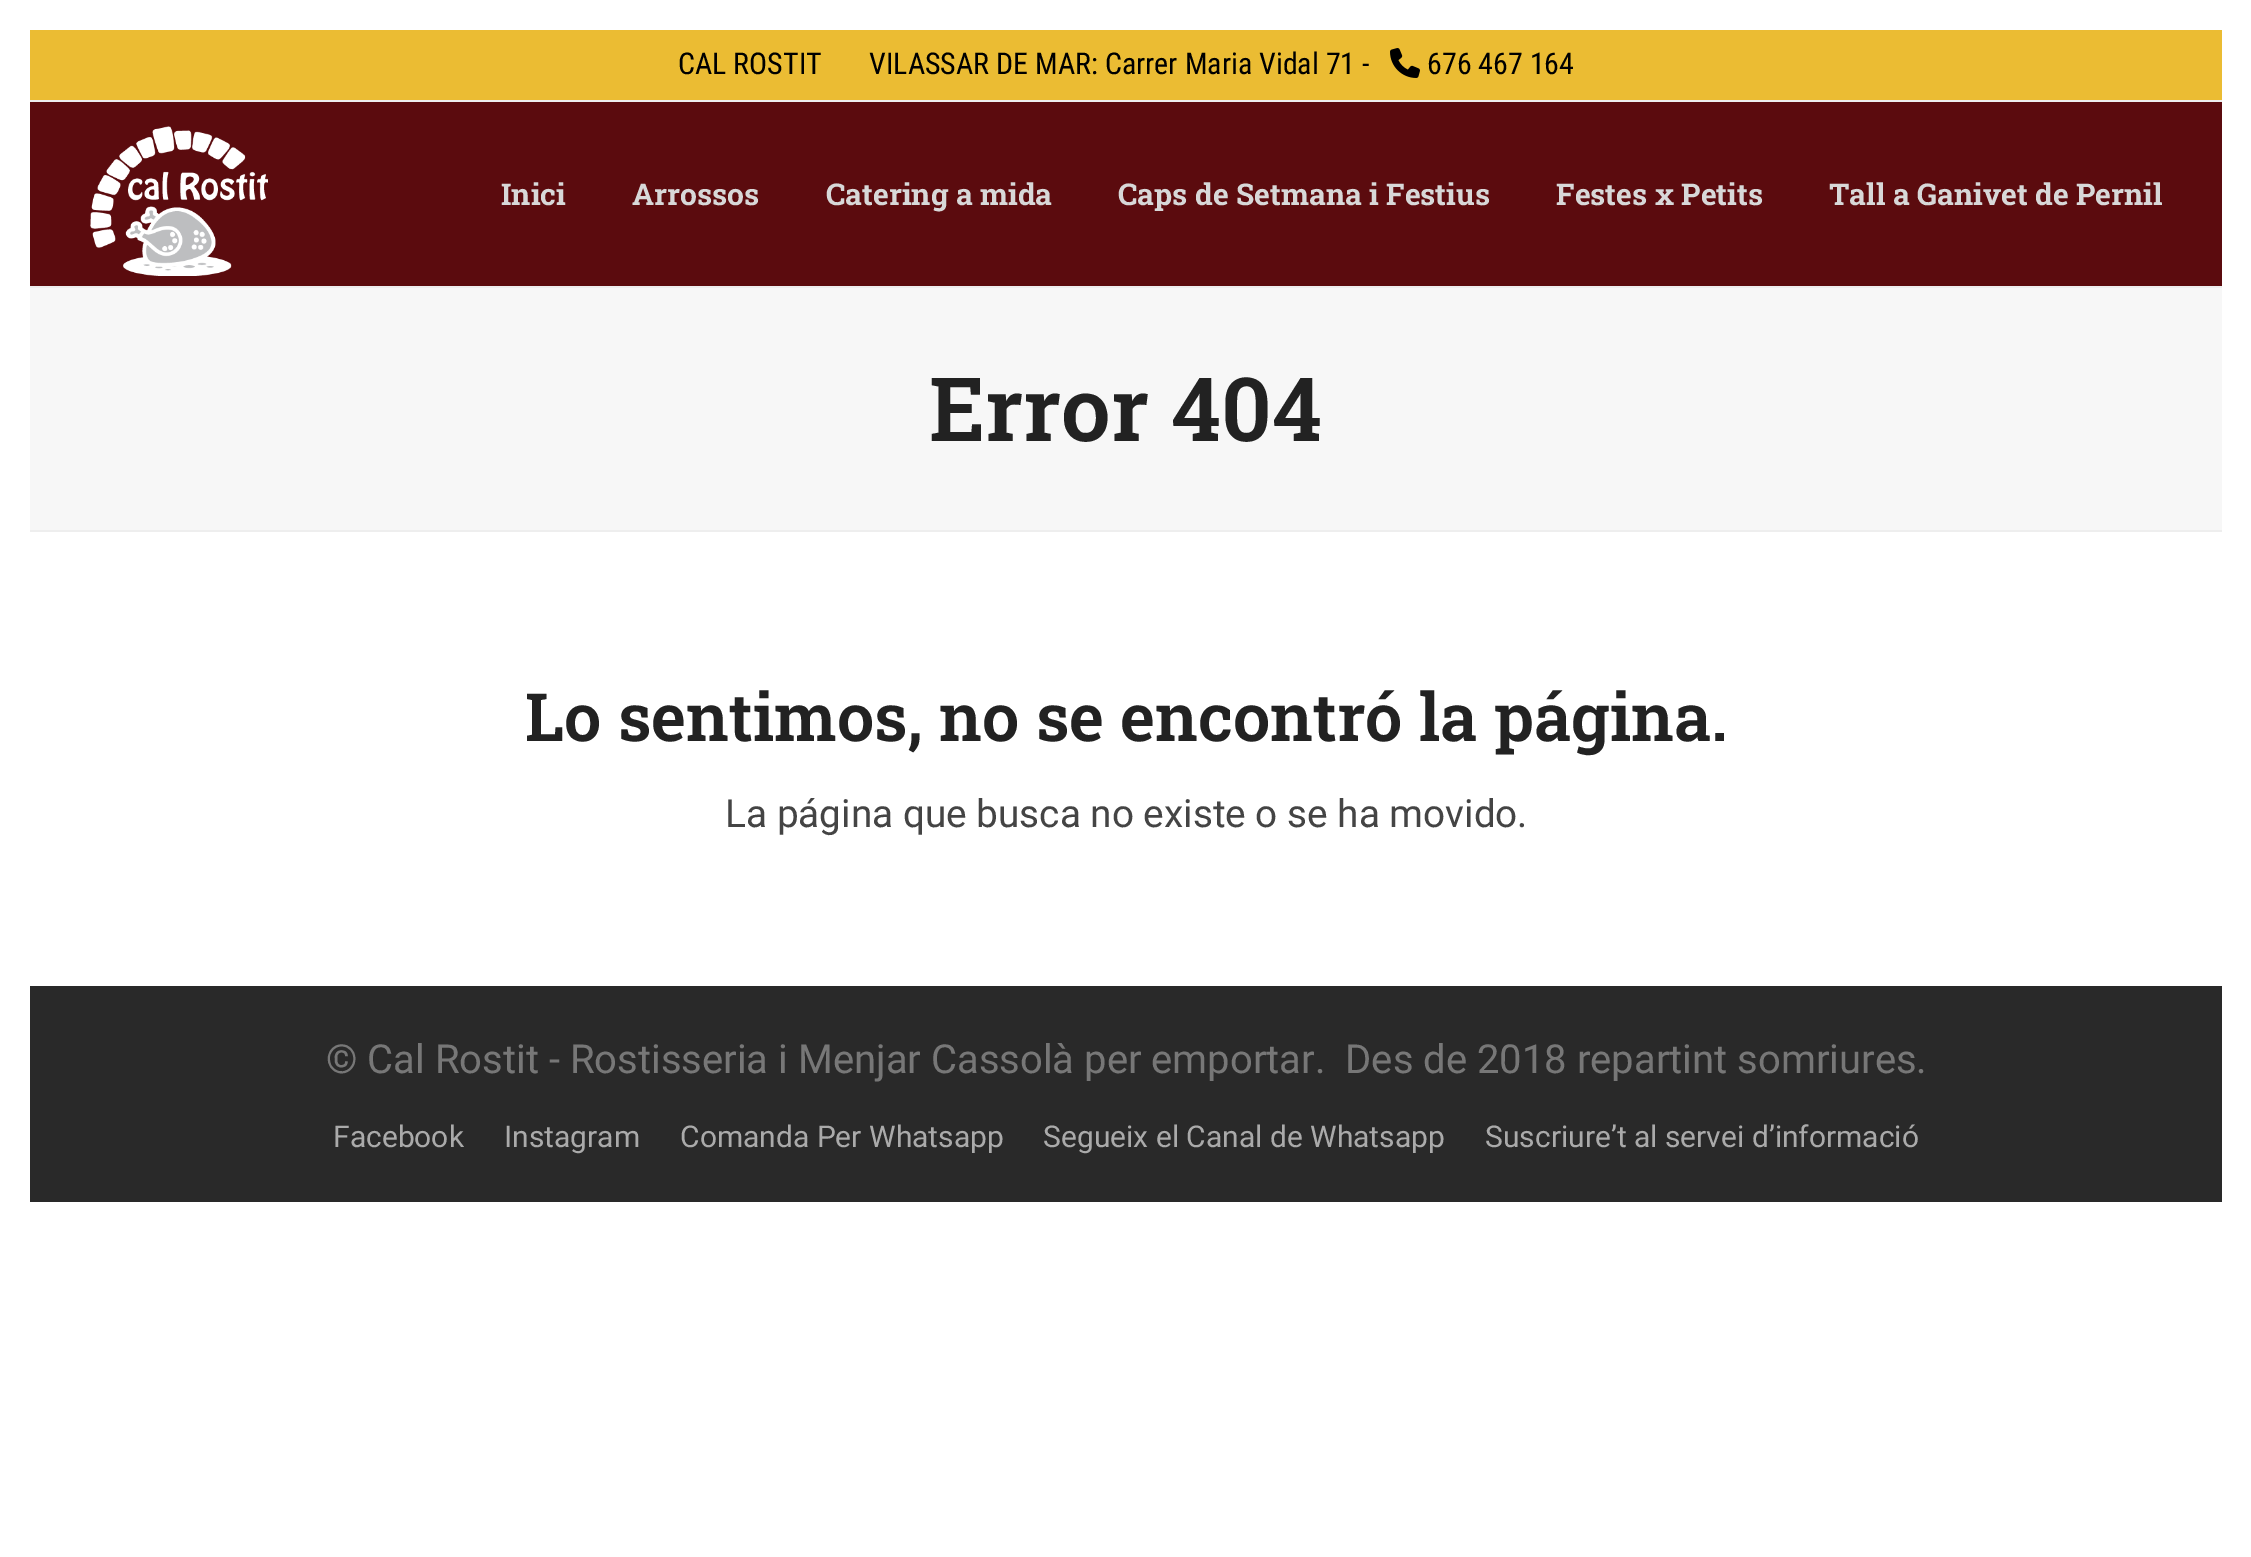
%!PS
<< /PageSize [2251 1557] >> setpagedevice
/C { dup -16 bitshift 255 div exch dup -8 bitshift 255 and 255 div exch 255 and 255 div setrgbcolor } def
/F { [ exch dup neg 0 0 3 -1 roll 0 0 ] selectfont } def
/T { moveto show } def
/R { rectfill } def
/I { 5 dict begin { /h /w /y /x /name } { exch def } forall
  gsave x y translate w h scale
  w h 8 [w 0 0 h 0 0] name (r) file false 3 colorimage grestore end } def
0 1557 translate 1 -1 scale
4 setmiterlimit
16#FFFFFF C
0 0 2251 1557 R
16#EBBC33 C
30 30 2192 70 R
16#EEEEEE C
30 100 2192 2 R
/RobotoCondensed-Regular 30 F
16#000000 C
(CAL ROSTIT) 678 74 T
(VILASSAR DE MAR: Carrer Maria Vidal 71 -) 869 74 T
(1.rgb) 1390 48 30 30 I
(676 467 164) 1427 74 T
16#5B0B0E C
30 102 2192 184 R
(2.rgb) 90 126 178 150 I
/RobotoSlab-Bold 30 F
16#D8D8D8 C
(Inici) 501 205 T
(Arrossos) 632 205 T
(Catering a mida) 826 205 T
(Caps de Setmana i Festius) 1118 205 T
(Festes x Petits) 1556 205 T
(Tall a Ganivet de Pernil) 1829 205 T
16#F7F7F7 C
30 288 2192 242 R
16#EEEEEE C
30 286 2192 2 R
30 530 2192 2 R
/RobotoSlab-SemiBold 88.5 F
16#222222 C
(Error 404) 929 441 T
/RobotoSlab-SemiBold 66.5 F
(Lo sentimos, no se encontró la página.) 525 741 T
/Roboto-Regular 38.75 F
16#444444 C
(La página que busca no existe o se ha movido.) 725 827 T
16#292929 C
30 986 2192 216 R
/Roboto-Regular 40 F
16#777777 C
(© Cal Rostit - Rostisseria i Menjar Cassolà per emportar.  Des de 2018 repartint somriures.) 326 1073 T
/Roboto-Regular 30 F
16#AAAAAA C
(Facebook) 333 1147 T
(Instagram) 504 1147 T
(Comanda Per Whatsapp) 680 1147 T
(Segueix el Canal de Whatsapp) 1043 1147 T
(Suscriure’t al servei d’informació) 1485 1147 T
showpage
